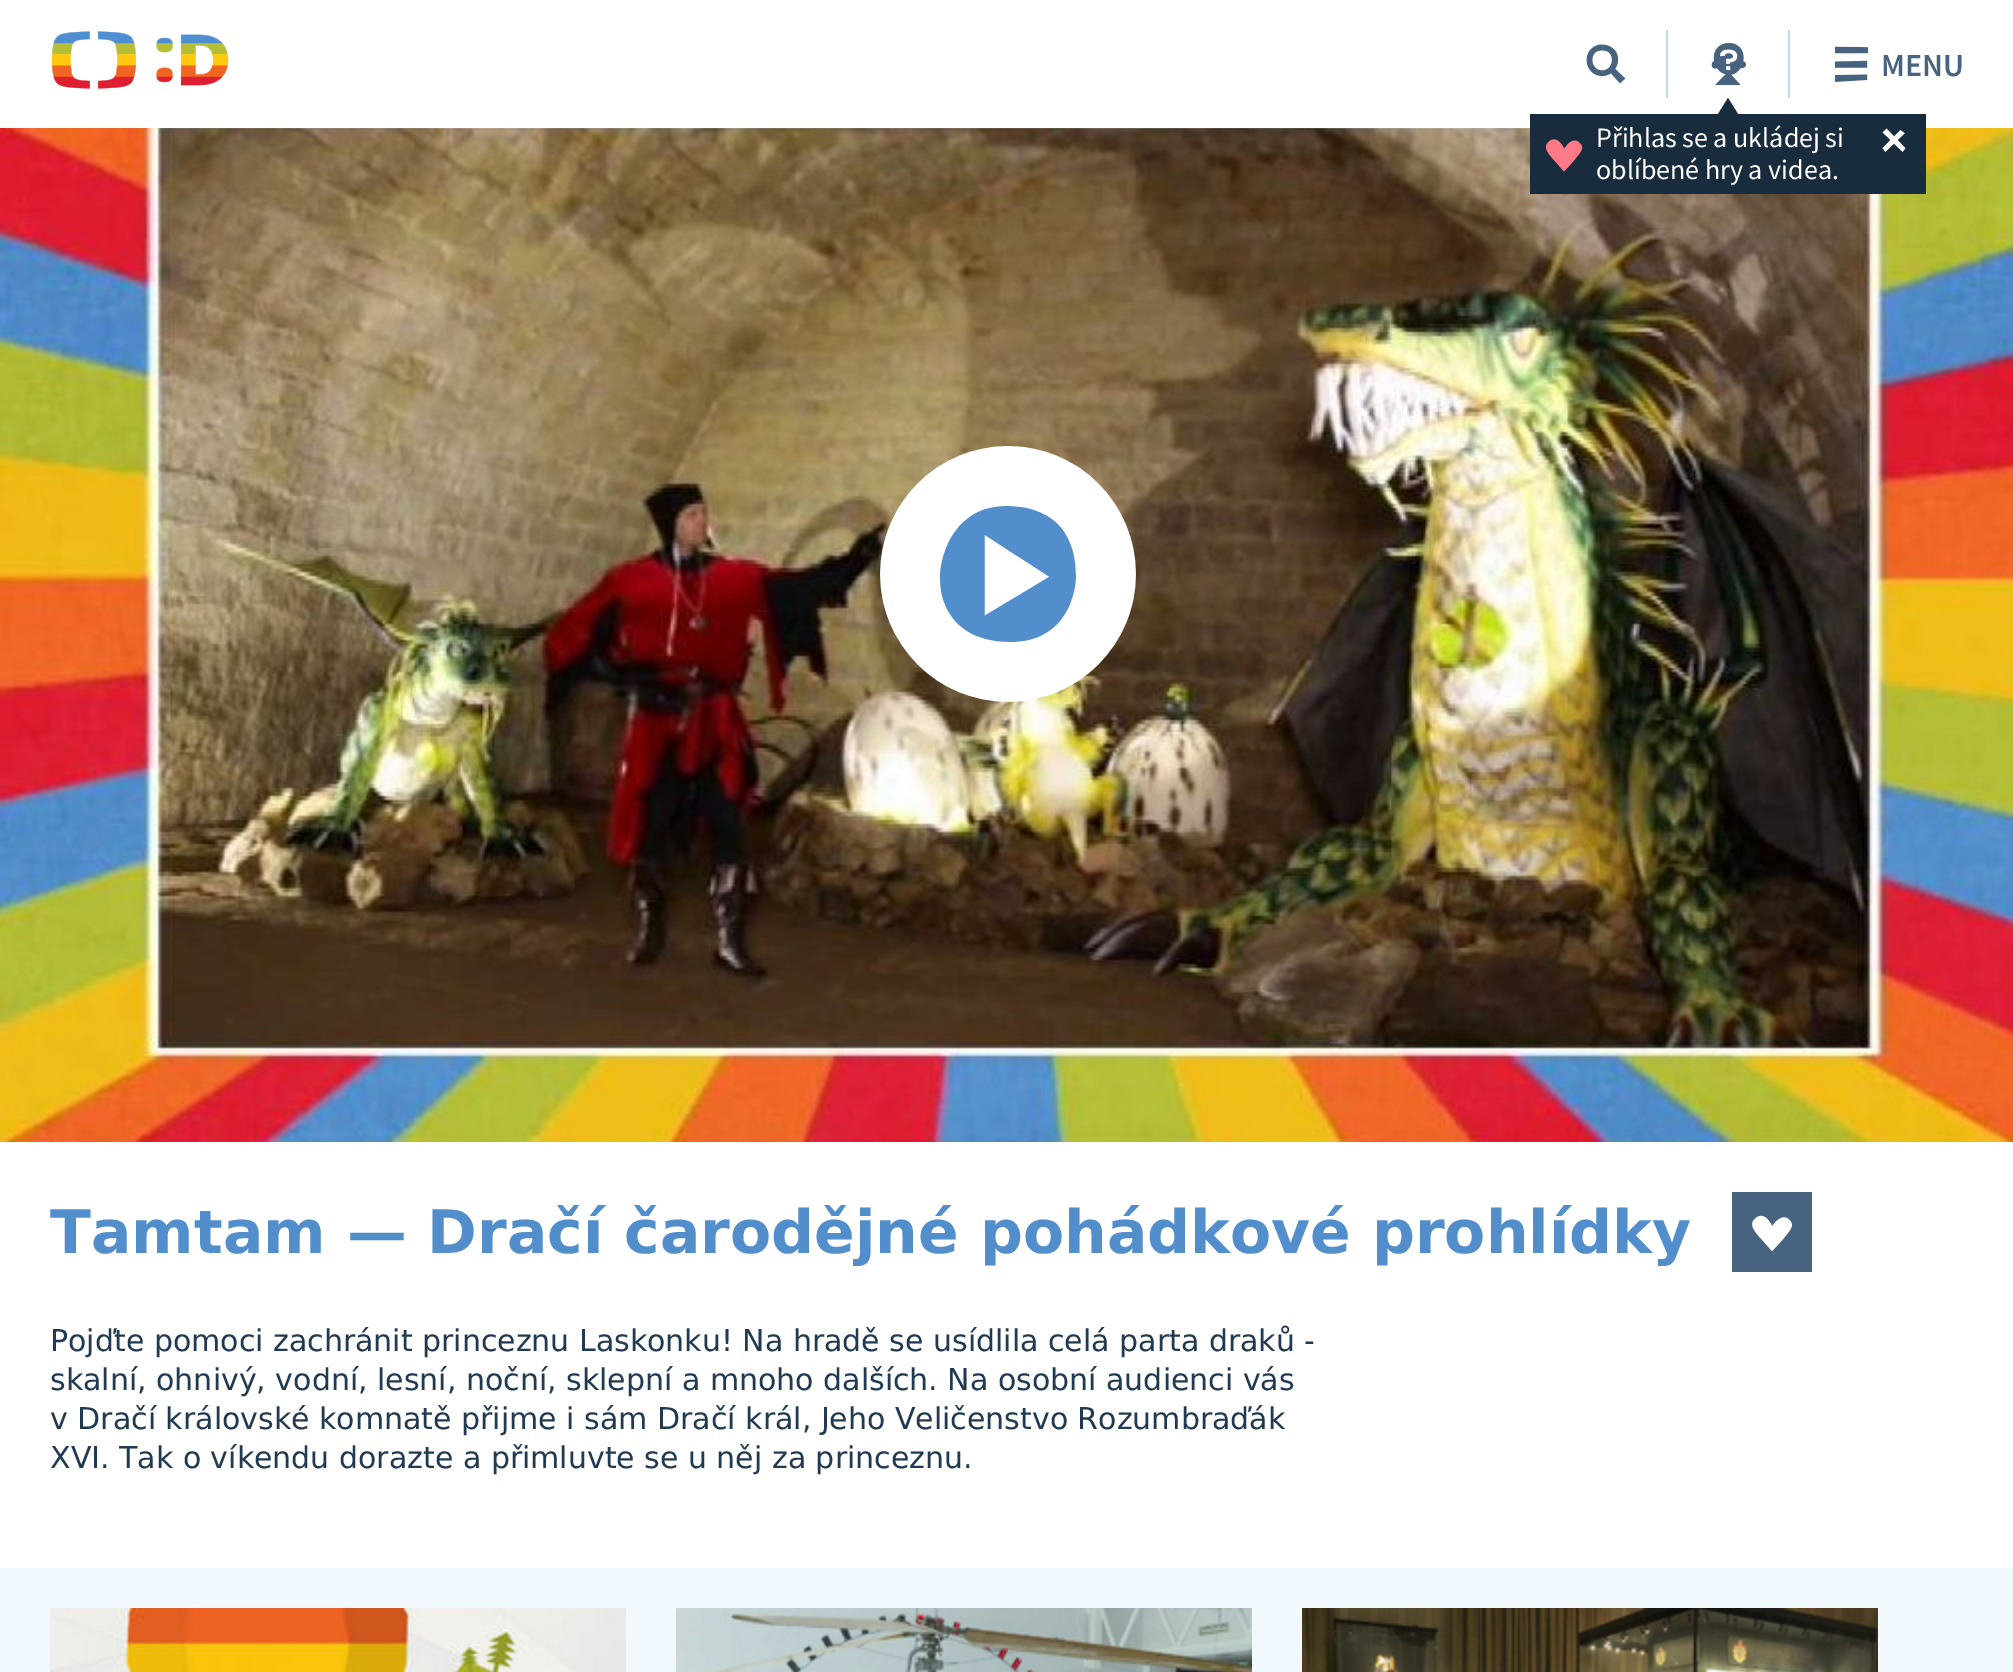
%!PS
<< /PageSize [2013 1672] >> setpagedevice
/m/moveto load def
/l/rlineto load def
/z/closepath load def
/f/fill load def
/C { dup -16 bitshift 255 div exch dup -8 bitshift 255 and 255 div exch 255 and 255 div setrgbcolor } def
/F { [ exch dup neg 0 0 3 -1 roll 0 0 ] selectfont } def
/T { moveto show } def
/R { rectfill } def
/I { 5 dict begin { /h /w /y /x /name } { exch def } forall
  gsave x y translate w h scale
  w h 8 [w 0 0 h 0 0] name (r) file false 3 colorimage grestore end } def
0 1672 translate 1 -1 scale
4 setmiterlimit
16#FFFFFF C
0 0 2013 1672 R
(1.rgb) 51 31 178 58 I
(2.rgb) 1586 44 40 40 I
16#C3D7E6 C
1788 30 2 68 R
(3.rgb) 1835 46 33 36 I
/SourceSansPro-SemiBold 32 F
16#486380 C
(MENU) 1881 76 T
16#C3D7E6 C
1666 30 2 68 R
(4.rgb) 1711 43 35 42 I
(7.rgb) 0 128 2013 1014 I
16#192C3D C
1530 114 396 80 R
1738 114 m -20 0 l 10 -16 l z f
(5.rgb) 1546 139 37 33 I
/SourceSansPro-Regular 28 F
16#FFFFFF C
(Přihlas se a ukládej si) 1596 147 T
(oblíbené hry a videa.) 1596 179 T
(6.rgb) 1882 128 24 24 I
(8.rgb) 880 446 256 256 I
/DejaVuSans-Bold 60 F
16#518ECB C
(Tamtam — Dračí čarodějné pohádkové prohlídky) 50 1253 T
16#486380 C
1732 1192 80 80 R
(9.rgb) 1752 1215 40 37 I
/DejaVuSans-Regular 30 F
16#213A52 C
(Pojďte pomoci zachránit princeznu Laskonku! Na hradě se usídlila celá parta draků -) 50 1351 T
(skalní, ohnivý, vodní, lesní, noční, sklepní a mnoho dalších. Na osobní audienci vás) 50 1390 T
(v Dračí královské komnatě přijme i sám Dračí král, Jeho Veličenstvo Rozumbraďák) 50 1429 T
(XVI. Tak o víkendu dorazte a přimluvte se u něj za princeznu.) 50 1468 T
16#F1F8FE C
0 1568 2013 104 R
(10.rgb) 50 1608 576 64 I
(11.rgb) 676 1608 576 64 I
(12.rgb) 1302 1608 576 64 I
showpage
